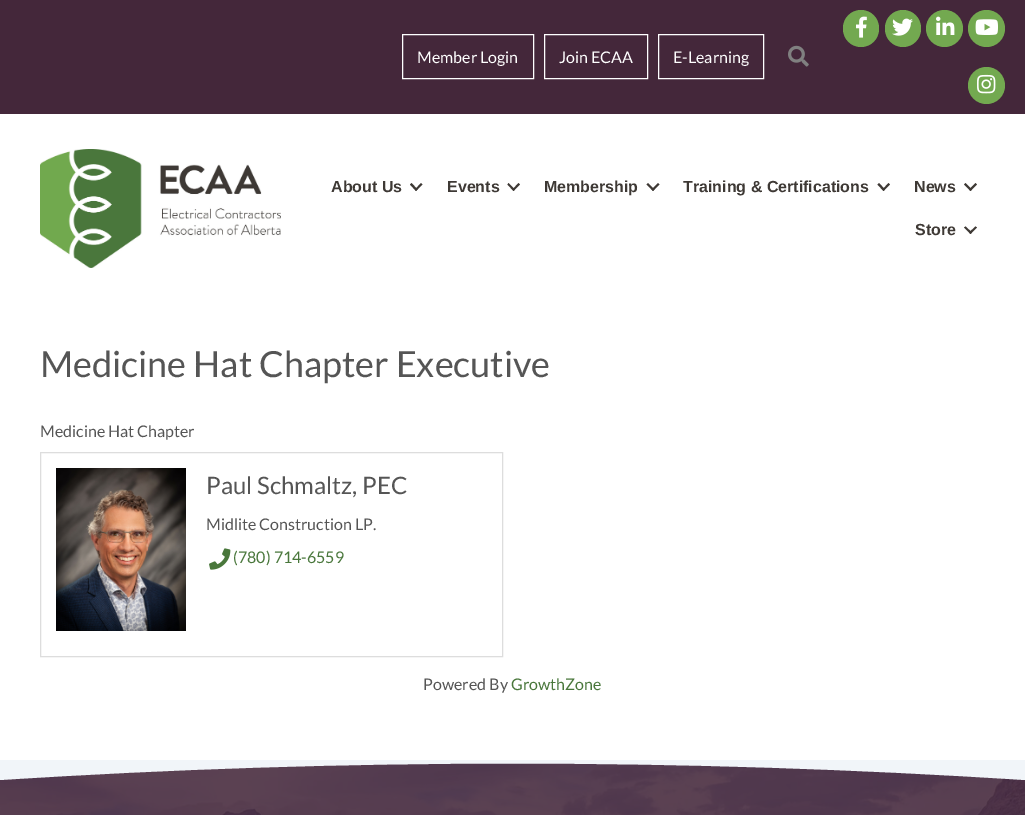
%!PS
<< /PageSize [1025 815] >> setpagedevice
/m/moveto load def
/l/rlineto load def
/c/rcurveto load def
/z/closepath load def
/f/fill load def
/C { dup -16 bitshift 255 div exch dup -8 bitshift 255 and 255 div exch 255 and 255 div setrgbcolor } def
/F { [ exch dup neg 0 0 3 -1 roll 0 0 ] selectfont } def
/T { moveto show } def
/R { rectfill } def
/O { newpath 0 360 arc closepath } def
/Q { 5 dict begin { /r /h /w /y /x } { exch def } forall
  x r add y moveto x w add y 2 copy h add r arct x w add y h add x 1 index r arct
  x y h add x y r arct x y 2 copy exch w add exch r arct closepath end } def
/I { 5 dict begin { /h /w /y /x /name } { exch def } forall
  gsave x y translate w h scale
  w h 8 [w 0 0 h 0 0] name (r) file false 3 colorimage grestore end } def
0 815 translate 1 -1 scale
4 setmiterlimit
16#FFFFFF C
0 0 1025 815 R
16#44273A C
0 0 1025 114 R
16#FFFFFF C
402.5 34.5 131 44 rectstroke
/Lato-Regular 16 F
(Member Login) 417 63 T
544.5 34.5 103 44 rectstroke
(Join ECAA) 559 63 T
658.5 34.5 105 44 rectstroke
(E-Learning) 673 63 T
(1.rgb) 788 45 21 22 I
16#73A950 C
843 10 36 37 18 Q f
(2.rgb) 856 16 11 22 I
885 10 36 37 18 Q f
(3.rgb) 892 18 21 18 I
944.5 28.5 18.5 O f
(4.rgb) 936 16 19 19 I
986.5 28.5 18.5 O f
(5.rgb) 975 19 23 16 I
986.5 85.5 18.5 O f
(6.rgb) 977 74 19 20 I
(7.rgb) 40 149 241 119 I
/LiberationSans-Bold 16 F
16#3E3935 C
(About Us) 331 192 T
421 183 m 1.5 1.5 l -6.5 6.5 l -1 -1.5 l z f
411.5 183 m 6 6.5 l -1.5 1.5 l -6 -6.5 l z f
(Events) 447 192 T
518.5 183 m 1.5 1.5 l -6.5 6.5 l -1 -1.5 l z f
508.5 183 m 6.5 6.5 l -1.5 1.5 l -6 -6.5 l z f
(Membership) 544 192 T
658 183 m 1.5 1.5 l -6.5 6.5 l -1.5 -1.5 l z f
648 183 m 6.5 6.5 l -1.5 1.5 l -6.5 -6.5 l z f
(Training & Certifications) 683 192 T
888.5 183 m 1.5 1.5 l -6.5 6.5 l -1 -1.5 l z f
879 183 m 6 6.5 l -1.5 1.5 l -6 -6.5 l z f
(News) 914 192 T
975.5 183 m 1.5 1.5 l -6.5 6.5 l -1.5 -1.5 l z f
965.5 183 m 6.5 6.5 l -1.5 1.5 l -6.5 -6.5 l z 975.5 226.5 m 1.5 1 l -6.5 6.5 l -1.5 -1.5 l z f
(Store) 915 235 T
965.5 226.5 m 6.5 6 l -1.5 1.5 l -6.5 -6.5 l z f
/Lato-Regular 36 F
16#555555 C
(Medicine Hat Chapter Executive) 40 377 T
/Lato-Regular 16 F
(Medicine Hat Chapter) 40 437 T
16#DDDDDD C
40.5 452.5 462 204 rectstroke
(8.rgb) 56 468 130 163 I
/Lato-Regular 24 F
16#555555 C
(Paul Schmaltz, PEC) 206 494 T
/Lato-Regular 16 F
(Midlite Construction LP.) 206 530 T
(9.rgb) 209 548 22 22 I
16#49773B C
(\(780\) 714-6559) 233 563 T
16#555555 C
(Powered By) 423 690 T
16#49773B C
(GrowthZone) 511 690 T
(10.rgb) 0 763 1025 52 I
16#F1F5F9 C
1025 760 m -1025 0 l 0 20 l 341 -22 684 -22 1025 0 c z f
showpage
